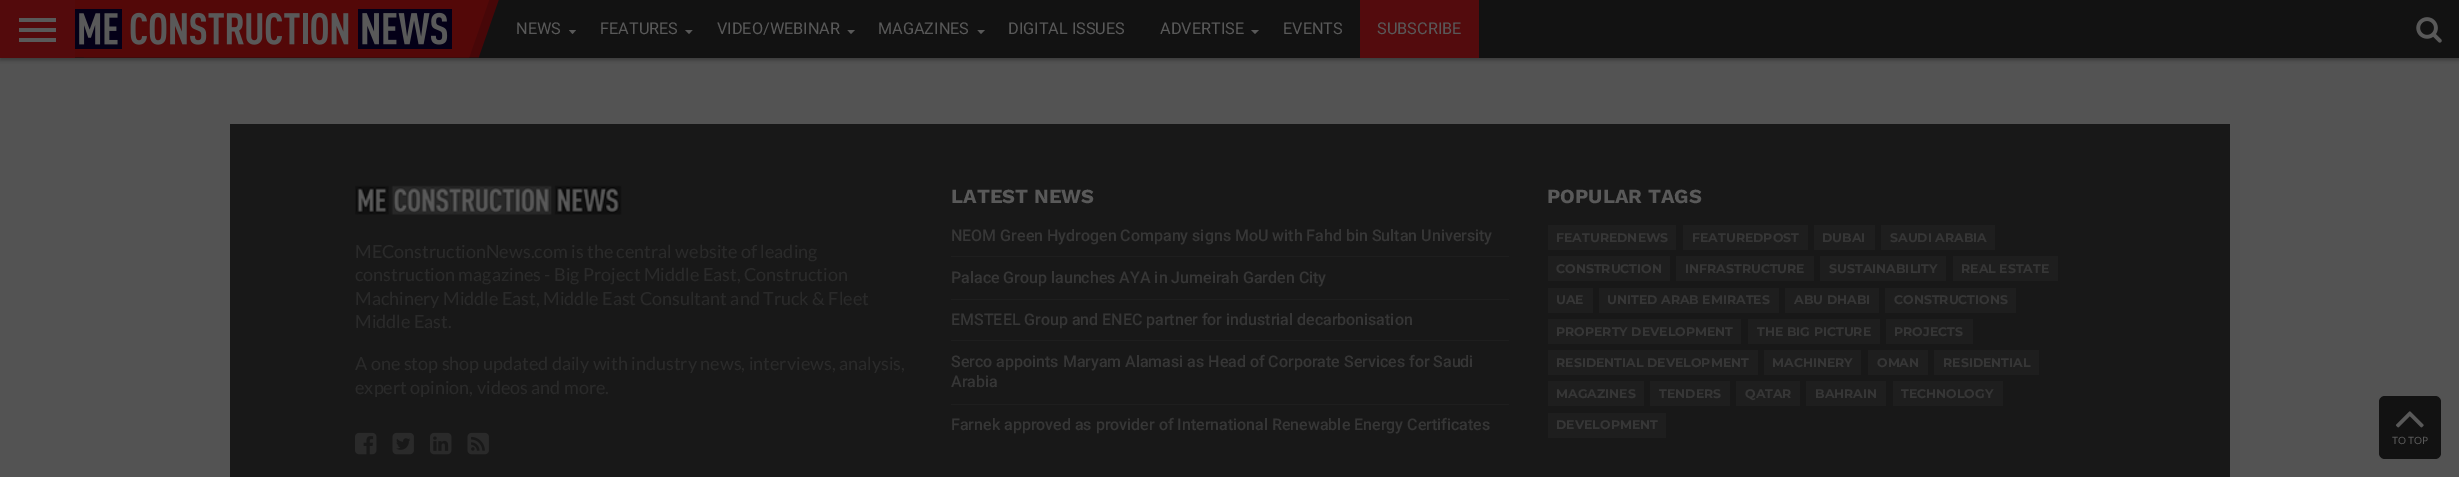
%!PS
<< /PageSize [2459 477] /PageUsesTransparency true >> setpagedevice
/m/moveto load def
/l/rlineto load def
/z/closepath load def
/f/fill load def
/C { dup -16 bitshift 255 div exch dup -8 bitshift 255 and 255 div exch 255 and 255 div setrgbcolor } def
/F { [ exch dup neg 0 0 3 -1 roll 0 0 ] selectfont } def
/T { moveto show } def
/R { rectfill } def
/A { dup .setfillconstantalpha .setstrokeconstantalpha } def
/Q { 5 dict begin { /r /h /w /y /x } { exch def } forall
  x r add y moveto x w add y 2 copy h add r arct x w add y h add x 1 index r arct
  x y h add x y r arct x y 2 copy exch w add exch r arct closepath end } def
/S { 12 dict begin { /a /b /q /h /w /y /x } { exch def } forall gsave /was 0 def
  9 -2 -9 { dup b mul 4 div /e exch def 1 sub .425 mul 2.718 exch exp 1 add a .99 .min exch div /now exch def
    1 1 now sub 1 was sub div sub A /was now def
    w h .min e 2 mul add 0 gt { x e sub y e sub w e 2 mul add h e 2 mul add
      q e add b .6 mul add w h .min 2 div e add .min 0 .max Q fill } if } for grestore end } def
/I { 5 dict begin { /h /w /y /x /name } { exch def } forall
  gsave x y translate w h scale
  w h 8 [w 0 0 h 0 0] name (r) file false 3 colorimage grestore end } def
0 .pushpdf14devicefilter
0 477 translate 1 -1 scale
4 setmiterlimit
16#535353 C
0 0 2459 477 R
16#000000 C
0 3 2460 57 0 2 .3 S
16#121212 C
75 0 2384 58 R
16#530A0C C
0 0 75 58 R
16#595959 C
19 18 37 4 R
19 28 37 4 R
19 38 37 4 R
(1.rgb) 75 0 424 58 I
/Roboto-Regular 16.25 F
(NEWS) 516 34 T
569 30 m 7 0 l -3.5 4 l z f
(FEATURES) 600 34 T
685 30 m 7.5 0 l -3.5 4 l z f
(VIDEO/WEBINAR) 717 34 T
847.5 30 m 7.5 0 l -4 4 l z f
(MAGAZINES) 878 34 T
977.5 30 m 7.5 0 l -4 4 l z f
(DIGITAL ISSUES) 1008 34 T
(ADVERTISE) 1160 34 T
1251 30 m 8 0 l -4 4 l z f
(EVENTS) 1283 34 T
16#530B0D C
1360 0 119 58 R
16#595959 C
(SUBSCRIBE) 1377 34 T
(2.rgb) 2416 17 26 26 I
16#181818 C
230 124 2000 353 R
(3.rgb) 355 185 267 30 I
/Lato-Regular 18 F
16#2A2A2A C
(MEConstructionNews.com is the central website of leading) 355 258 T
(construction magazines - Big Project Middle East, Construction) 355 281 T
(Machinery Middle East, Middle East Consultant and Truck & Fleet) 355 305 T
(Middle East.) 355 328 T
(A one stop shop updated daily with industry news, interviews, analysis,) 355 370 T
(expert opinion, videos and more.) 355 394 T
(4.rgb) 355 432 22 23 I
(5.rgb) 392 432 22 23 I
(6.rgb) 430 432 22 23 I
(7.rgb) 467 432 22 23 I
/WorkSans-Bold 20 F
16#595959 C
(LATEST NEWS) 951 203 T
/Roboto-Medium 16 F
16#363636 C
(NEOM Green Hydrogen Company signs MoU with Fahd bin Sultan University) 951 241 T
16#1E1E1E C
951 256 558 1 R
16#363636 C
(Palace Group launches AYA in Jumeirah Garden City) 951 283 T
16#1E1E1E C
951 299 558 1 R
16#363636 C
(EMSTEEL Group and ENEC partner for industrial decarbonisation) 951 325 T
16#1E1E1E C
951 340 558 1 R
16#363636 C
(Serco appoints Maryam Alamasi as Head of Corporate Services for Saudi) 951 367 T
(Arabia) 951 387 T
16#1E1E1E C
951 404 558 1 R
16#363636 C
(Farnek approved as provider of International Renewable Energy Certificates) 951 430 T
/WorkSans-Bold 20 F
16#595959 C
(POPULAR TAGS) 1547 203 T
16#1E1E1E C
1548 225 128 25 R
/Montserrat-Bold 12.5 F
16#363636 C
(FEATUREDNEWS) 1556 242 T
16#1E1E1E C
1683 225 125 25 R
16#363636 C
(FEATUREDPOST) 1692 242 T
16#1E1E1E C
1814 225 61 25 R
16#363636 C
(DUBAI) 1822 242 T
16#1E1E1E C
1881 225 114 25 R
16#363636 C
(SAUDI ARABIA) 1890 242 T
16#1E1E1E C
1548 256 122 25 R
16#363636 C
(CONSTRUCTION) 1556 273 T
16#1E1E1E C
1676 256 138 25 R
16#363636 C
(INFRASTRUCTURE) 1685 273 T
16#1E1E1E C
1820 256 126 25 R
16#363636 C
(SUSTAINABILITY) 1829 273 T
16#1E1E1E C
1953 256 105 25 R
16#363636 C
(REAL ESTATE) 1961 273 T
16#1E1E1E C
1548 288 45 25 R
16#363636 C
(UAE) 1556 304 T
16#1E1E1E C
1599 288 180 25 R
16#363636 C
(UNITED ARAB EMIRATES) 1607 304 T
16#1E1E1E C
1785 288 94 25 R
16#363636 C
(ABU DHABI) 1794 304 T
16#1E1E1E C
1885 288 131 25 R
16#363636 C
(CONSTRUCTIONS) 1894 304 T
16#1E1E1E C
1548 319 193 25 R
16#363636 C
(PROPERTY DEVELOPMENT) 1556 336 T
16#1E1E1E C
1748 319 132 25 R
16#363636 C
(THE BIG PICTURE) 1757 336 T
16#1E1E1E C
1886 319 87 25 R
16#363636 C
(PROJECTS) 1894 336 T
16#1E1E1E C
1548 350 210 25 R
16#363636 C
(RESIDENTIAL DEVELOPMENT) 1556 367 T
16#1E1E1E C
1764 350 97 25 R
16#363636 C
(MACHINERY) 1772 367 T
16#1E1E1E C
1868 350 60 25 R
16#363636 C
(OMAN) 1877 367 T
16#1E1E1E C
1934 350 105 25 R
16#363636 C
(RESIDENTIAL) 1943 367 T
16#1E1E1E C
1548 381 96 25 R
16#363636 C
(MAGAZINES) 1556 398 T
16#1E1E1E C
1650 381 80 25 R
16#363636 C
(TENDERS) 1659 398 T
16#1E1E1E C
1736 381 64 25 R
16#363636 C
(QATAR) 1745 398 T
16#1E1E1E C
1806 381 80 25 R
16#363636 C
(BAHRAIN) 1815 398 T
16#1E1E1E C
1893 381 110 25 R
16#363636 C
(TECHNOLOGY) 1901 398 T
16#1E1E1E C
1548 413 118 25 R
16#363636 C
(DEVELOPMENT) 1556 429 T
16#121212 C
2379 396 62 63 6 Q f
(8.rgb) 2395 411 29 17 I
/Lato-Regular 10 F
16#595959 C
(TO TOP) 2392 444 T
.poppdf14devicefilter showpage
